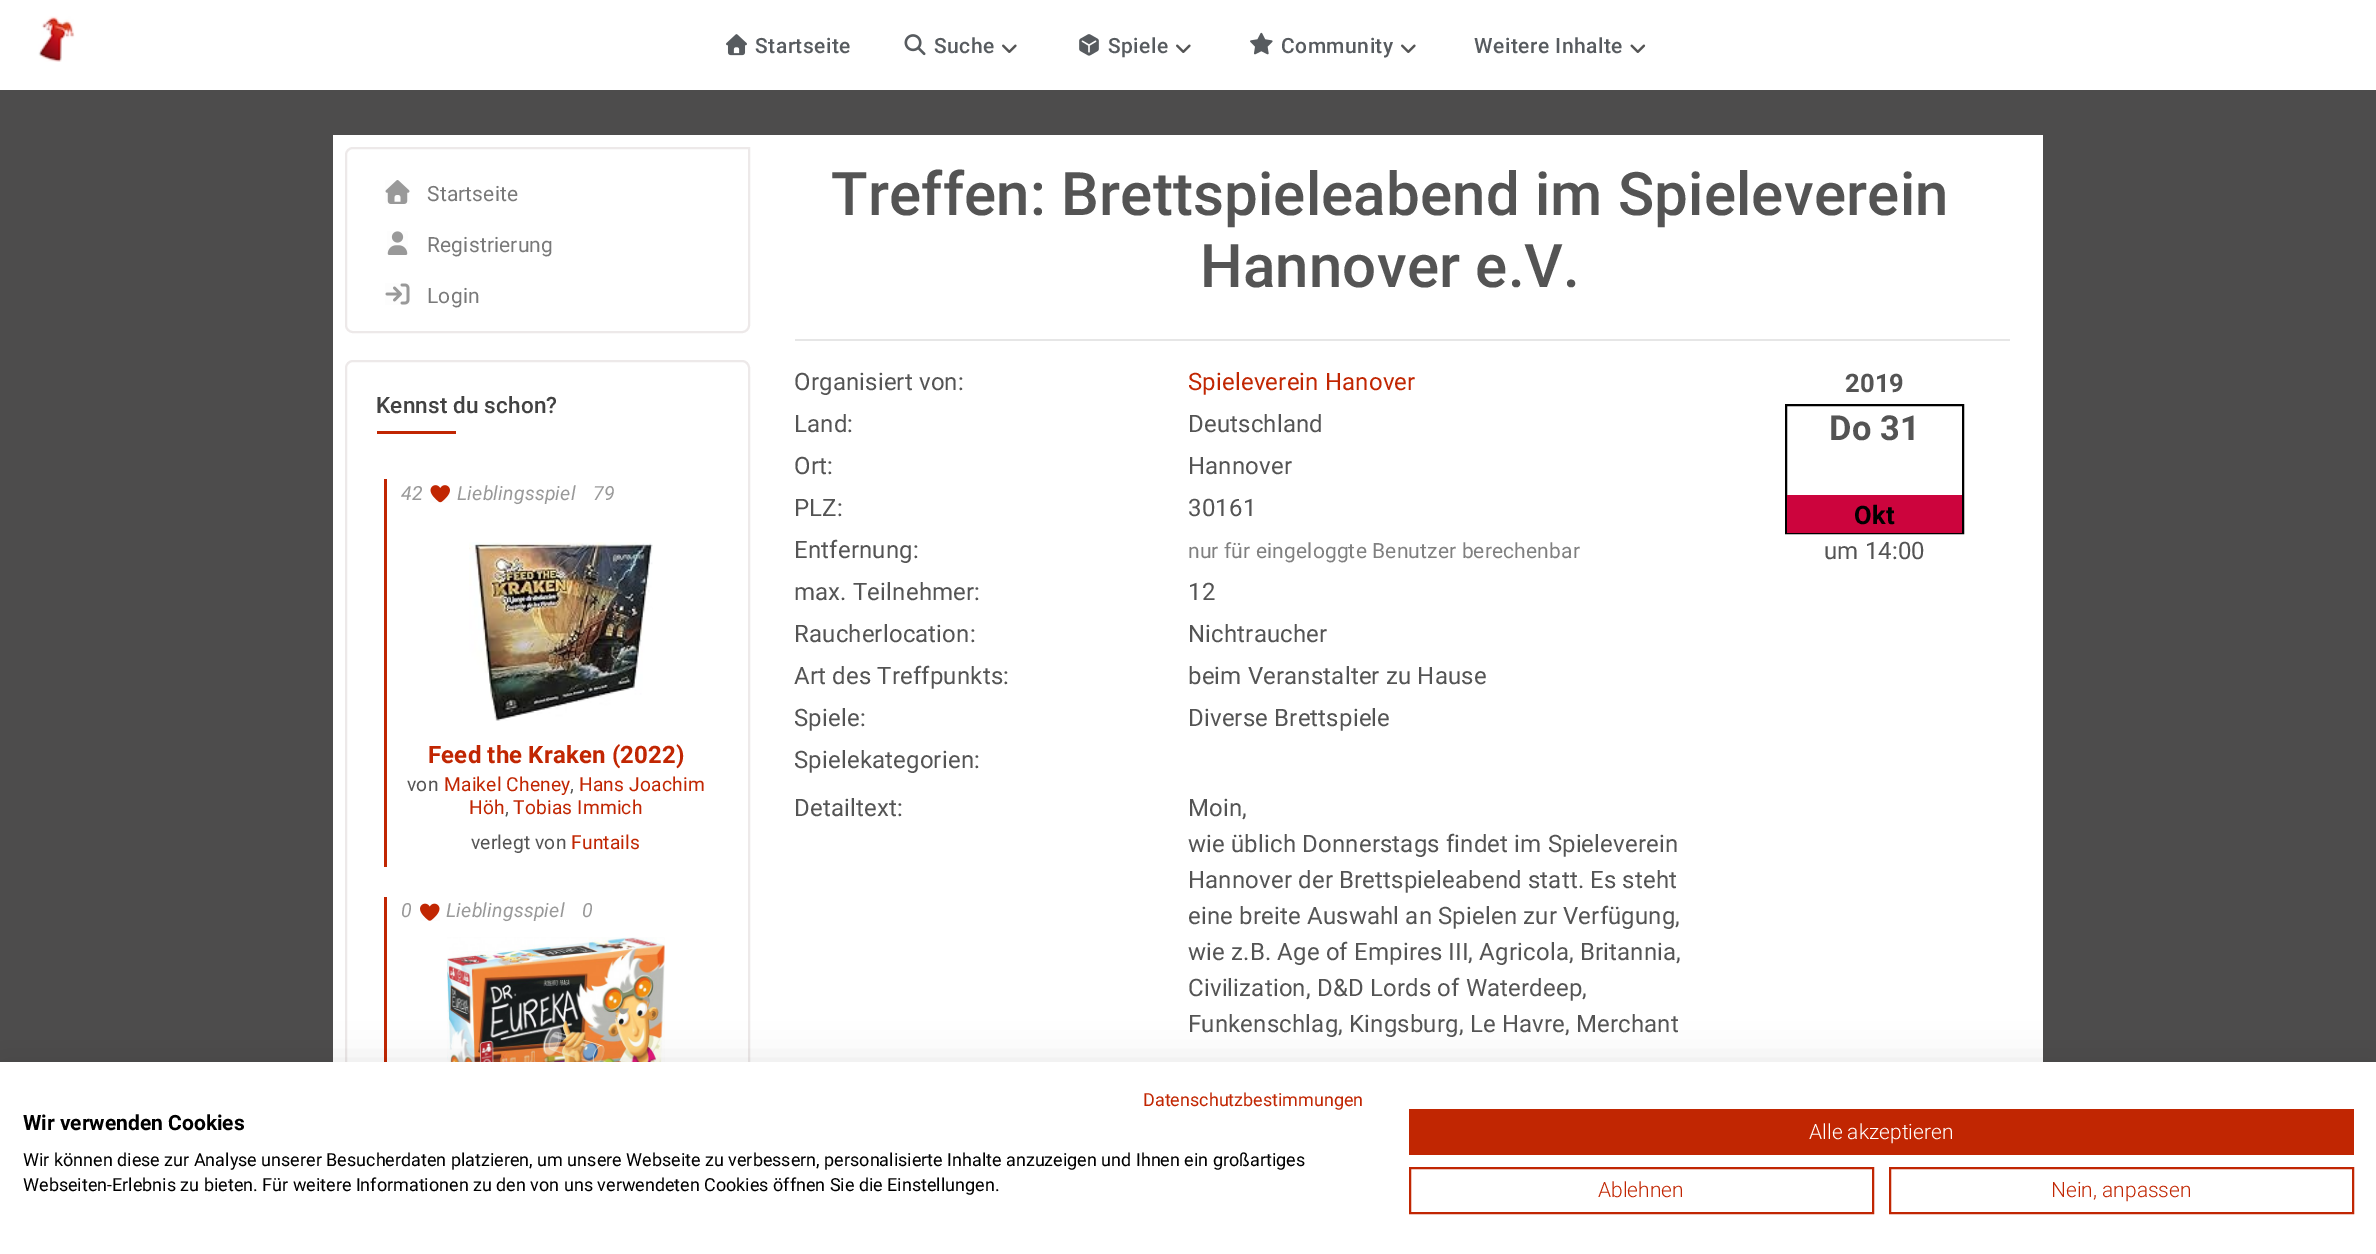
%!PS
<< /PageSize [2376 1254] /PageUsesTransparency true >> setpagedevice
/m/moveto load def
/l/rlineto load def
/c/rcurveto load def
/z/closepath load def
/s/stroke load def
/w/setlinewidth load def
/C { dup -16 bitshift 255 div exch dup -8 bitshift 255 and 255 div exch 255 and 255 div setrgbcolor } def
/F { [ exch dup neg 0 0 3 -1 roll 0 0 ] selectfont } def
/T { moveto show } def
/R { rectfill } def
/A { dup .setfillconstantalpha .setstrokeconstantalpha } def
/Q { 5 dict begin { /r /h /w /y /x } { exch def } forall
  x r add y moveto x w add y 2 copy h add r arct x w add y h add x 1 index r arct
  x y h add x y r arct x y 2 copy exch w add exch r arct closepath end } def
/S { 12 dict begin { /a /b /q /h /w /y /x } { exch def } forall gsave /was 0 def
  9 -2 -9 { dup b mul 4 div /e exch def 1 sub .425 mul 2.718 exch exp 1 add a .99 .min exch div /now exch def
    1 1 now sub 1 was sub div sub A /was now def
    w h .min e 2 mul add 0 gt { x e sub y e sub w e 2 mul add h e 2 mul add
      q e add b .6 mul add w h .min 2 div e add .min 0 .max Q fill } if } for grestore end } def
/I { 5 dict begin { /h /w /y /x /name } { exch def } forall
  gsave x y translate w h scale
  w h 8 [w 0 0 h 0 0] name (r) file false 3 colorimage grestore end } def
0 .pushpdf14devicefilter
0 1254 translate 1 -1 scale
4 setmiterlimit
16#FFFFFF C
0 0 2376 1254 R
(1.rgb) 38 16 37 46 I
(2.rgb) 726 34 21 22 I
/Roboto-Medium 21 F
16#575B5F C
755 53 m .5 0 (Startseite) ashow
(3.rgb) 904 34 22 22 I
934 53 m .5 0 (Suche) ashow
(4.rgb) 1002 44 15 9 I
(5.rgb) 1079 34 20 22 I
1108 53 m .5 0 (Spiele) ashow
(4.rgb) 1176 44 15 9 I
(6.rgb) 1250 32 23 23 I
1281 53 m .5 0 (Community) ashow
(4.rgb) 1401 44 15 9 I
1474 53 m .5 0 (Weitere Inhalte) ashow
(7.rgb) 1630 44 16 9 I
16#4D4C4C C
0 90 2376 972 R
16#FFFFFF C
333 135 1710 927 R
16#EDE9E9 C
2 w
353 148 m 396 0 l 0 177 l 0 4 -3 7 -7 7 c -389 0 l -4 0 -7 -3 -7 -7 c 0 -170 l 0 -4 3 -7 7 -7 c z s
(8.rgb) 385 180 25 24 I
/Roboto-Regular 21 F
16#797979 C
427 201 m .15 0 (Startseite) ashow
(9.rgb) 387 231 21 24 I
427 252 m .15 0 (Registrierung) ashow
(10.rgb) 385 283 25 22 I
427 303 m .15 0 (Login) ashow
16#EDE9E9 C
346 361 403 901 7 Q s
/Roboto-Medium 22.5 F
16#424242 C
376 413 m .15 0 (Kennst du schon?) ashow
16#C12602 C
377 431 79 3 R
384 479 3 388 R
/Roboto-Italic 19.5 F
16#999999 C
401 500 m .15 0 (42) ashow
(11.rgb) 430 485 20 18 I
457 500 m .15 0 (Lieblingsspiel) ashow
593 500 m .15 0 (79) ashow
(12.rgb) 469 542 184 179 I
/Roboto-Bold 24 F
16#C12602 C
428 763 m .15 0 (Feed the Kraken \(2022\)) ashow
/Roboto-Regular 19.25 F
16#545454 C
407 791 m .15 0 (von) ashow
16#C12602 C
444 791 m .15 0 (Maikel Cheney) ashow
16#545454 C
570 791 m .15 0 (,) ashow
16#C12602 C
579 791 m .15 0 (Hans Joachim) ashow
469 814 m .15 0 (Höh) ashow
16#545454 C
505 814 m .15 0 (,) ashow
16#C12602 C
513 814 m .15 0 (Tobias Immich) ashow
16#545454 C
471 849 m .15 0 (verlegt von) ashow
16#C12602 C
571 849 m .15 0 (Funtails) ashow
384 897 3 165 R
/Roboto-Italic 19.5 F
16#999999 C
401 917 m .15 0 (0) ashow
(13.rgb) 420 903 20 18 I
446 917 m .15 0 (Lieblingsspiel) ashow
582 917 m .15 0 (0) ashow
(14.rgb) 447 937 218 125 I
/Roboto-Medium 60 F
16#545454 C
831 215 m .15 0 (Treffen: Brettspieleabend im Spieleverein) ashow
1200 287 m .15 0 (Hannover e.V.) ashow
16#E6E6E6 C
795 339 1215 2 R
/Roboto-Regular 24 F
16#545454 C
794 390 m .15 0 (Organisiert von:) ashow
16#C12602 C
1188 390 m .15 0 (Spieleverein Hanover) ashow
16#545454 C
794 432 m .15 0 (Land:) ashow
1188 432 m .15 0 (Deutschland) ashow
794 474 m .15 0 (Ort:) ashow
1188 474 m .15 0 (Hannover) ashow
794 516 m .15 0 (PLZ:) ashow
1188 516 m .15 0 (30161) ashow
794 558 m .15 0 (Entfernung:) ashow
/Roboto-Regular 21 F
16#808080 C
1188 558 m .15 0 (nur für eingeloggte Benutzer berechenbar) ashow
/Roboto-Regular 24 F
16#545454 C
794 600 m .15 0 (max. Teilnehmer:) ashow
1188 600 m .15 0 (12) ashow
794 642 m .15 0 (Raucherlocation:) ashow
1188 642 m .15 0 (Nichtraucher) ashow
794 684 m .15 0 (Art des Treffpunkts:) ashow
1188 684 m .15 0 (beim Veranstalter zu Hause) ashow
794 726 m .15 0 (Spiele:) ashow
1188 726 m .15 0 (Diverse Brettspiele) ashow
794 768 m .15 0 (Spielekategorien:) ashow
794 816 m .15 0 (Detailtext:) ashow
1188 816 m .15 0 (Moin,) ashow
1188 852 m .15 0 (wie üblich Donnerstags findet im Spieleverein) ashow
1188 888 m .15 0 (Hannover der Brettspieleabend statt. Es steht) ashow
1188 924 m .15 0 (eine breite Auswahl an Spielen zur Verfügung,) ashow
1188 960 m .15 0 (wie z.B. Age of Empires III, Agricola, Britannia,) ashow
1188 996 m .15 0 (Civilization, D&D Lords of Waterdeep,) ashow
1188 1032 m .15 0 (Funkenschlag, Kingsburg, Le Havre, Merchant) ashow
/Roboto-Bold 25.5 F
1845 392 m .15 0 (2019) ashow
16#000000 C
1786 405 177 128 rectstroke
/Roboto-Bold 34.5 F
16#545454 C
1829 440 m .15 0 (Do 31) ashow
16#CC043D C
1787 495 175 38 R
/Roboto-Bold 25.5 F
16#000000 C
1854 524 m .15 0 (Okt) ashow
/Roboto-Regular 24 F
16#545454 C
1824 559 m .15 0 (um 14:00) ashow
16#000000 C
0 1062 2376 192 0 18 .1 S
16#FFFFFF C
0 1062 2376 192 R
/Roboto-Regular 18 F
16#C12602 C
(Datenschutzbestimmungen) 1143 1106 T
/Roboto-Bold 21 F
16#000000 C
(Wir verwenden Cookies) 23 1130 T
/Roboto-Regular 18 F
(Wir können diese zur Analyse unserer Besucherdaten platzieren, um unsere Webseite zu verbessern, personalisierte Inhalte anzuzeigen und Ihnen ein großartiges) 23 1166 T
(Webseiten-Erlebnis zu bieten. Für weitere Informationen zu den von uns verwendeten Cookies öffnen Sie die Einstellungen.) 23 1191 T
16#C12602 C
1409 1109 945 46 R
/Roboto-Light 21 F
16#FFFFFF C
(Alle akzeptieren) 1809 1139 T
16#C12602 C
1410 1168 463 45 rectstroke
(Ablehnen) 1598 1197 T
1890 1168 463 45 rectstroke
(Nein, anpassen) 2051 1197 T
.poppdf14devicefilter showpage
